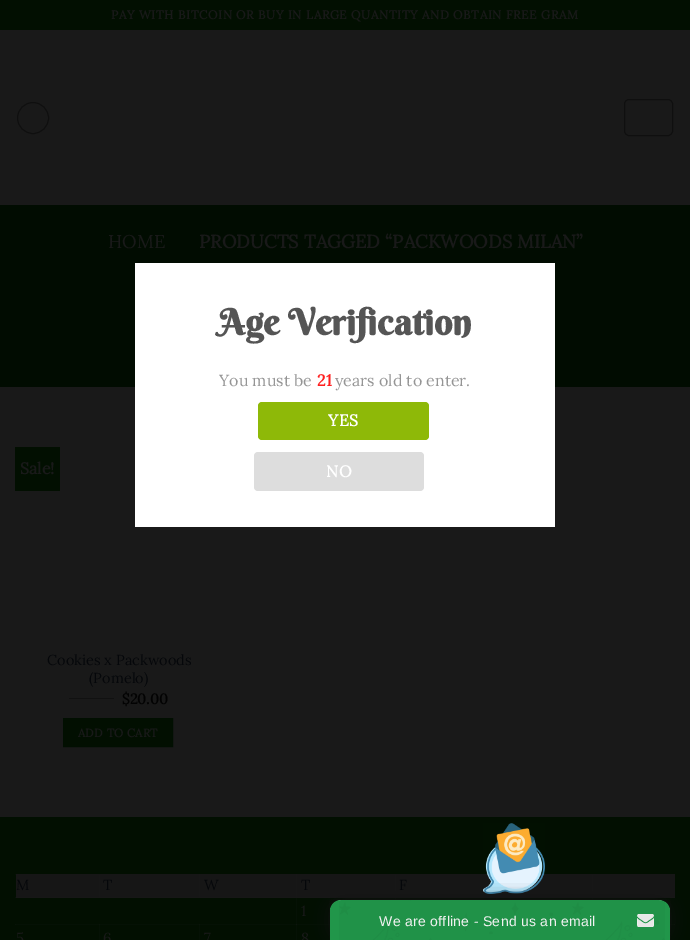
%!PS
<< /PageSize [690 940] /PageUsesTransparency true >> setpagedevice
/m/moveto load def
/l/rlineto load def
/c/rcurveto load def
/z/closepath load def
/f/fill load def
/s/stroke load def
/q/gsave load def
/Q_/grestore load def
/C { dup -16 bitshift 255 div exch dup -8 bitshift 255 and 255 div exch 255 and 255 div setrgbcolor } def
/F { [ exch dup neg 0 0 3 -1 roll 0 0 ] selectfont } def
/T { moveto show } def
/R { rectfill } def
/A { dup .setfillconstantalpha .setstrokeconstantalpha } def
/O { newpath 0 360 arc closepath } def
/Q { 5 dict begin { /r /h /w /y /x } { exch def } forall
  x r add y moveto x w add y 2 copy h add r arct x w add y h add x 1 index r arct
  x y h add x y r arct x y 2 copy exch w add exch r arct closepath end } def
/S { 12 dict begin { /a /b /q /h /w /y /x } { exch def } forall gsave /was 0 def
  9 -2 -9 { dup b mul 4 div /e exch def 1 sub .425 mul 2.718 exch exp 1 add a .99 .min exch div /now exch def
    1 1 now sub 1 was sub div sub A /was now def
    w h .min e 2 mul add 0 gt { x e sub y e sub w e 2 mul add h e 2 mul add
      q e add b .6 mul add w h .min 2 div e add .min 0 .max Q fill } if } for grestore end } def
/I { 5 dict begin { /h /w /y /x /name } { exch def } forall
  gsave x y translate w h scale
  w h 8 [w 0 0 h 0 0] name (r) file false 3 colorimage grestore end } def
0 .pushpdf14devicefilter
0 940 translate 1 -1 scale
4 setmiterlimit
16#191919 C
0 0 690 940 R
16#020F01 C
0 0 690 30 R
/Lora-Bold 12 F
16#191919 C
111 19 m .6 0 (PAY WITH BITCOIN OR BUY IN LARGE QUANTITY AND OBTAIN FREE GRAM) ashow
16#0F0F0F C
33 118 15.5 O s
624.5 99.5 48 36 4.5 Q s
16#010C01 C
0 205 690 182 R
/Lora-Regular 18.4 F
16#191919 C
(HOME) 108 248 T
/Lora-Bold 18.4 F
(PRODUCTS TAGGED “PACKWOODS MILAN”) 199 248 T
16#020F01 C
15 447 45 44 R
/Lora-Bold 16 F
16#191919 C
(Sale!) 20 474 T
/Lora-Regular 14.5 F
16#05070A C
(Cookies x Packwoods) 47 665 T
(\(Pomelo\)) 89 683 T
16#111111 C
69 698 45 1 R
/Lora-Bold 14.5 F
16#020202 C
($20.00) 122 704 T
16#020F01 C
63.5 718.5 m 109 0 l 0 28 l -109 0 l z q f Q_
16#010F01 C
s
/Lora-Bold 11.5 F
16#191919 C
78 737 m .3 0 (ADD TO CART) ashow
16#020F01 C
0 818 690 122 R
16#051105 C
15 874 1 1 R
16#081208 C
15 897 1 1 R
16#051105 C
296 897 1 28 R
395 897 1 3 R
496 897 1 3 R
592 897 1 3 R
15 924 85 1 R
16#081208 C
15 924 1 1 R
16#051105 C
99 924 1 16 R
99 924 101 1 R
16#0A1309 C
99 924 1 1 R
16#051105 C
199 924 1 16 R
199 924 98 1 R
16#0A1309 C
199 924 1 1 R
16#051105 C
296 924 1 16 R
296 924 34 1 R
16#0D140D C
296 924 1 1 R
16#010F01 C
0 817 690 1 R
16#161616 C
16 874 83 23 R
16#171717 C
16 897 83 1 R
/Lora-Regular 14.5 F
16#05070A C
16 890 m 1 0 (M) ashow
16#161616 C
100 875 99 22 R
16#171717 C
99 874 1 24 R
16#161616 C
99 874 198 1 R
16#171717 C
199 874 1 24 R
99 897 101 1 R
16#05070A C
103 890 m 1 0 (T) ashow
16#161616 C
200 875 96 22 R
16#171717 C
296 874 1 24 R
200 897 195 1 R
16#05070A C
204 890 m 1 0 (W) ashow
16#161616 C
297 874 98 23 R
16#05070A C
301 890 m 1 0 (T) ashow
16#161616 C
396 875 100 22 R
16#171717 C
395 874 1 24 R
16#161616 C
395 874 93 1 R
16#171717 C
496 893 1 5 R
395 897 102 1 R
16#05070A C
399 890 m 1 0 (F) ashow
16#161616 C
497 875 95 22 R
540 874 53 1 R
16#171717 C
592 874 1 24 R
497 897 96 1 R
16#161616 C
593 875 81 22 R
674 874 1 24 R
592 874 83 1 R
16#171717 C
592 897 83 1 R
16#191919 C
(1) 301 916 T
16#051105 C
670 924 5 1 R
16#081208 C
674 924 1 1 R
16#191919 C
(5) 16 943 T
(6) 103 943 T
(7) 204 943 T
(8) 301 943 T
16#FFFFFF C
135 263 420 264 R
/BerkshireSwash-Bold 36 F
16#555555 C
(Age Verification) 218 335 T
/Lora-Regular 16 F
16#959595 C
(You must be) 219 386 T
/Lora-Bold 16 F
16#FF1F1F C
(21) 317 386 T
/Lora-Regular 16 F
16#959595 C
(years old to enter.) 335 386 T
16#8EB908 C
258 402 171 38 4 Q f
/Lora-Bold 16 F
16#FFFFFF C
328 426 m .5 0 (YES) ashow
16#DDDDDD C
254 452 170 39 4 Q f
16#FFFFFF C
326 477 m .5 0 (NO) ashow
(1.rgb) 483 823 62 71 I
16#111111 C
330 900 340 40 13 7.5 1 S
(2.rgb) 329 899 342 41 I
16#21964A C
341 900 m 318 0 l 6 0 11 5 11 11 c 0 29 l -340 0 l 0 -29 l 0 -6 5 -11 11 -11 c z f
(3.rgb) 339 900 326 40 I
/LiberationSans-Regular 14 F
16#F1F1F1 C
379 926 m .3 0 (We are offline - Send us an email) ashow
(4.rgb) 637 914 17 13 I
.poppdf14devicefilter showpage
